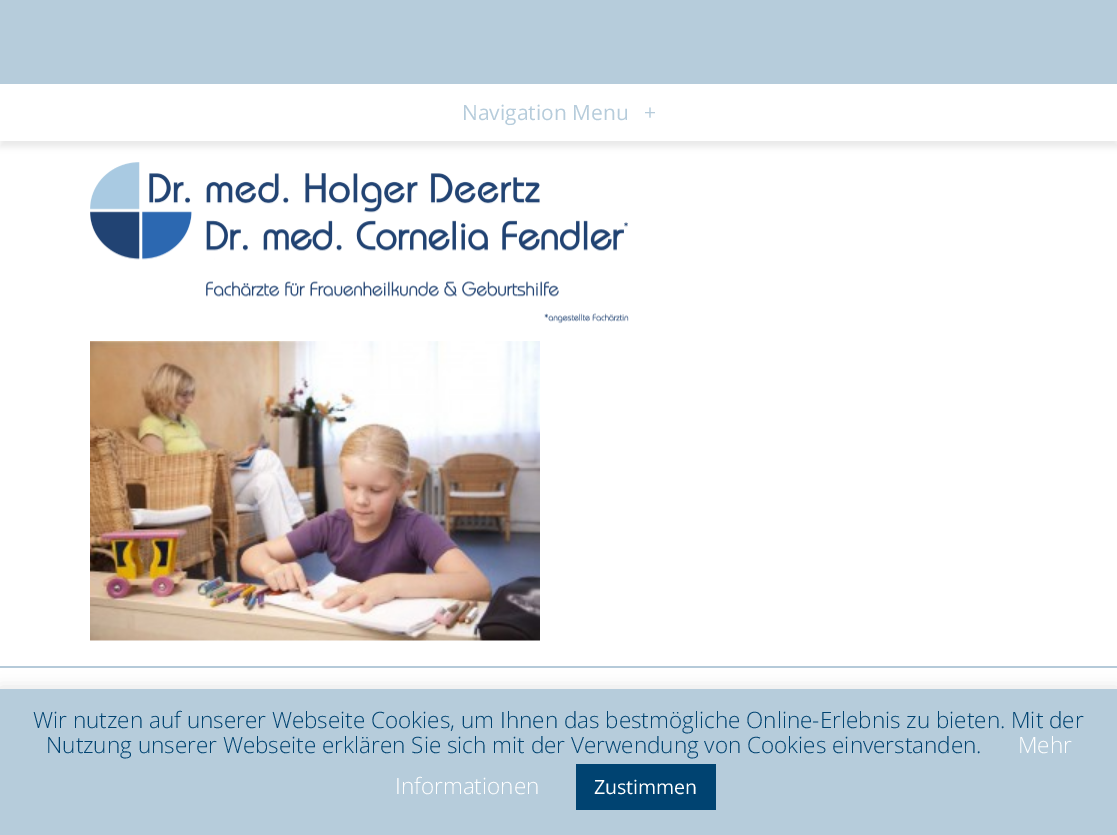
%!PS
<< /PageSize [1117 835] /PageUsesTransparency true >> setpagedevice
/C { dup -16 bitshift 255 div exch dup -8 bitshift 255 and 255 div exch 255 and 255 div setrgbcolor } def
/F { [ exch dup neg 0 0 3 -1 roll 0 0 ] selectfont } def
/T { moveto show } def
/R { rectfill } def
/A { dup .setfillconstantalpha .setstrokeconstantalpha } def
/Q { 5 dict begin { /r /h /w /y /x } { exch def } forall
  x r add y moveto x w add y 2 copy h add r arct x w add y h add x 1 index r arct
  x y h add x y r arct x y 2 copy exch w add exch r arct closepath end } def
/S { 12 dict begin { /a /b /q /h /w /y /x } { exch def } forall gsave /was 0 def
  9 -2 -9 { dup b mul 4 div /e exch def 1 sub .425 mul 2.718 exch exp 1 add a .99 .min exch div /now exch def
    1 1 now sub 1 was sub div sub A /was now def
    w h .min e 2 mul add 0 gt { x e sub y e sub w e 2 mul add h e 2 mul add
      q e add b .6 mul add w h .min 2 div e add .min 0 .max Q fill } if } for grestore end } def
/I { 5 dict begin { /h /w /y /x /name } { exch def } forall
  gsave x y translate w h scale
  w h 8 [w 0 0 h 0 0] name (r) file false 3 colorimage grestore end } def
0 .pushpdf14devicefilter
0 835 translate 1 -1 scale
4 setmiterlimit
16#FFFFFF C
0 0 1117 835 R
16#000000 C
0 6 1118 141 0 3 .08 S
16#B6CCDB C
0 0 1117 84 R
16#FFFFFF C
0 84 1117 57 R
/OpenSans-Regular 21 F
16#B6CCDB C
(Navigation Menu) 462 120 T
(+) 644 120 T
(1.rgb) 90 162 539 162 I
(2.rgb) 90 341 450 300 I
16#B5CAD9 C
0 666 1117 2 R
16#ACABAB C
0 687 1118 147 0 7.5 .3 S
16#B6CCDB C
0 689 1117 146 R
/OpenSans-Light 22.5 F
16#004371 C
(Wir nutzen auf unserer Webseite Cookies, um Ihnen das bestmögliche Online-Erlebnis zu bieten. Mit der) 33 728 T
(Nutzung unserer Webseite erklären Sie sich mit der Verwendung von Cookies einverstanden.) 46 753 T
16#FFFFFF C
(Mehr) 1018 753 T
(Informationen) 395 794 T
16#004371 C
576 764 140 46 R
/OpenSans-Regular 19.5 F
16#FFFFFF C
(Zustimmen) 594 794 T
.poppdf14devicefilter showpage
